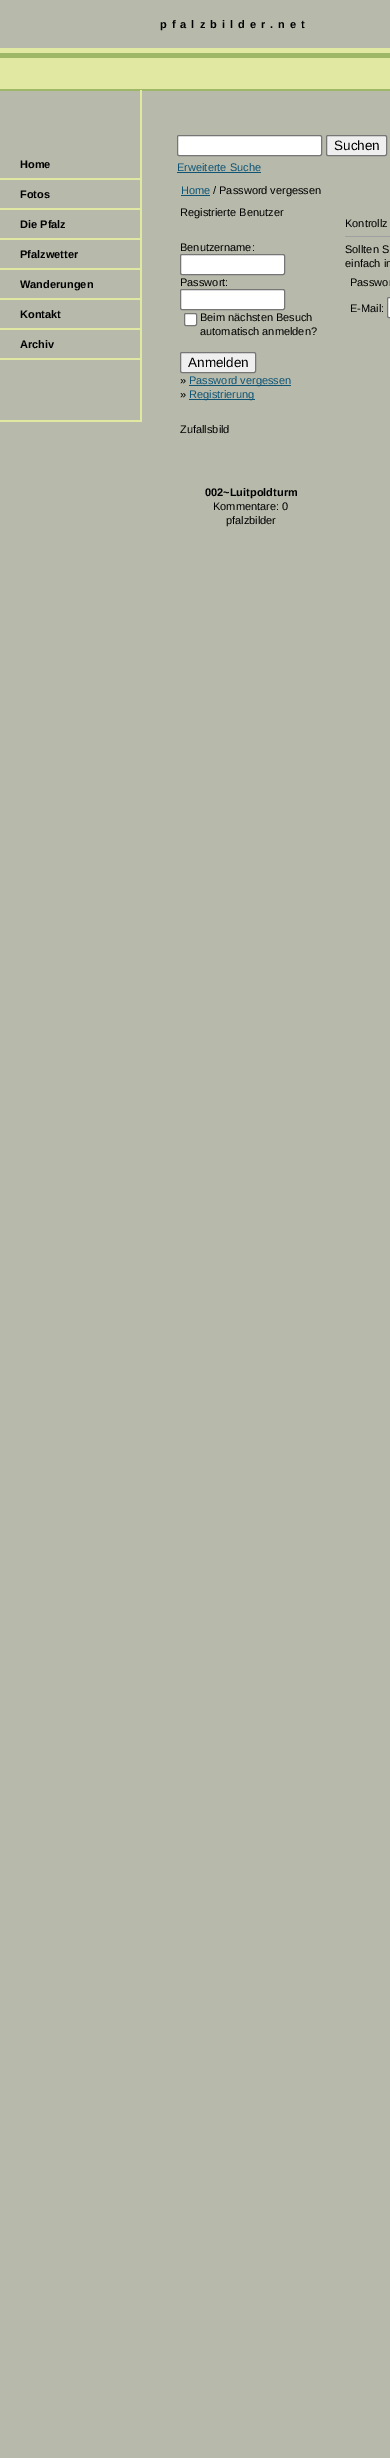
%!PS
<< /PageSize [390 2458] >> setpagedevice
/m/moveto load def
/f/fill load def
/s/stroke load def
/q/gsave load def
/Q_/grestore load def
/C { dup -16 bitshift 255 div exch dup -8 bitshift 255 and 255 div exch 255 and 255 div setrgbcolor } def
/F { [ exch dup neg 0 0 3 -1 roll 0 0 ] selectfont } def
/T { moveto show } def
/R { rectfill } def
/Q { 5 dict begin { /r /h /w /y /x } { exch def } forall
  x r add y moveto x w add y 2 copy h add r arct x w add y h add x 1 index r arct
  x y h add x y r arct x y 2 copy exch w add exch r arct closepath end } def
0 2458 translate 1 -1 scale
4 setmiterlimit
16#B7BAAB C
0 0 390 2458 R
16#E1E8A1 C
0 48 390 5 R
/LiberationSans-Bold 11 F
16#000000 C
160 28 m 5 0 (pfalzbilder.net) ashow
16#E1E8A1 C
0 58 390 31 R
16#9FB868 C
0 53 390 5 R
0 89 390 2 R
16#E1E8A1 C
140 90 2 332 R
0 420 142 2 R
0 178 140 2 R
16#000000 C
(Home) 20 168 T
16#E1E8A1 C
0 208 140 2 R
16#000000 C
(Fotos) 20 198 T
16#E1E8A1 C
0 238 140 2 R
16#000000 C
(Die Pfalz) 20 228 T
16#E1E8A1 C
0 268 140 2 R
16#000000 C
(Pfalzwetter) 20 258 T
16#E1E8A1 C
0 298 140 2 R
16#000000 C
(Wanderungen) 20 288 T
16#E1E8A1 C
0 328 140 2 R
16#000000 C
(Kontakt) 20 318 T
16#E1E8A1 C
0 358 140 2 R
16#000000 C
(Archiv) 20 348 T
16#FFFFFF C
177.5 135.5 144 20 1.5 Q q f Q_
16#767676 C
s
16#EFEFEF C
326.5 135.5 60 20 1.5 Q q f Q_
16#767676 C
s
/LiberationSans-Regular 13.5 F
16#000000 C
(Suchen) 334 150 T
/LiberationSans-Regular 11 F
16#0F5475 C
(Erweiterte Suche) 177 171 T
177 172 84 1 R
(Home) 181 194 T
181 195 29 1 R
16#000000 C
(/ Password vergessen) 213 194 T
(Registrierte Benutzer) 180 216 T
(Benutzername:) 180 251 T
16#FFFFFF C
180.5 254.5 104 20 1.5 Q q f Q_
16#767676 C
s
16#000000 C
(Passwort:) 180 286 T
16#FFFFFF C
180.5 289.5 104 20 1.5 Q q f Q_
16#767676 C
s
16#FFFFFF C
184.5 313.5 12 12 1.5 Q q f Q_
16#767676 C
s
16#000000 C
(Beim nächsten Besuch) 200 321 T
(automatisch anmelden?) 200 335 T
16#EFEFEF C
180.5 352.5 75 20 1.5 Q q f Q_
16#767676 C
s
/LiberationSans-Regular 13.5 F
16#000000 C
(Anmelden) 188 367 T
/LiberationSans-Regular 11 F
(») 180 384 T
16#0F5475 C
189 385 102 1 R
(Password vergessen) 189 384 T
16#000000 C
(») 180 398 T
16#0F5475 C
189 399 66 1 R
(Registrierung) 189 398 T
16#000000 C
(Zufallsbild) 180 433 T
/LiberationSans-Bold 11 F
(002~Luitpoldturm) 205 496 T
/LiberationSans-Regular 11 F
(Kommentare: 0) 213 510 T
(pfalzbilder) 226 524 T
(Kontrollz) 345 227 T
16#9F9F9F C
345 236 45 1 R
16#000000 C
(Sollten S) 345 253 T
(einfach in) 345 267 T
(Passwor) 350 286 T
(E-Mail:) 350 312 T
16#FFFFFF C
387.5 297.5 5 20 1.5 Q q f Q_
16#767676 C
s
showpage
